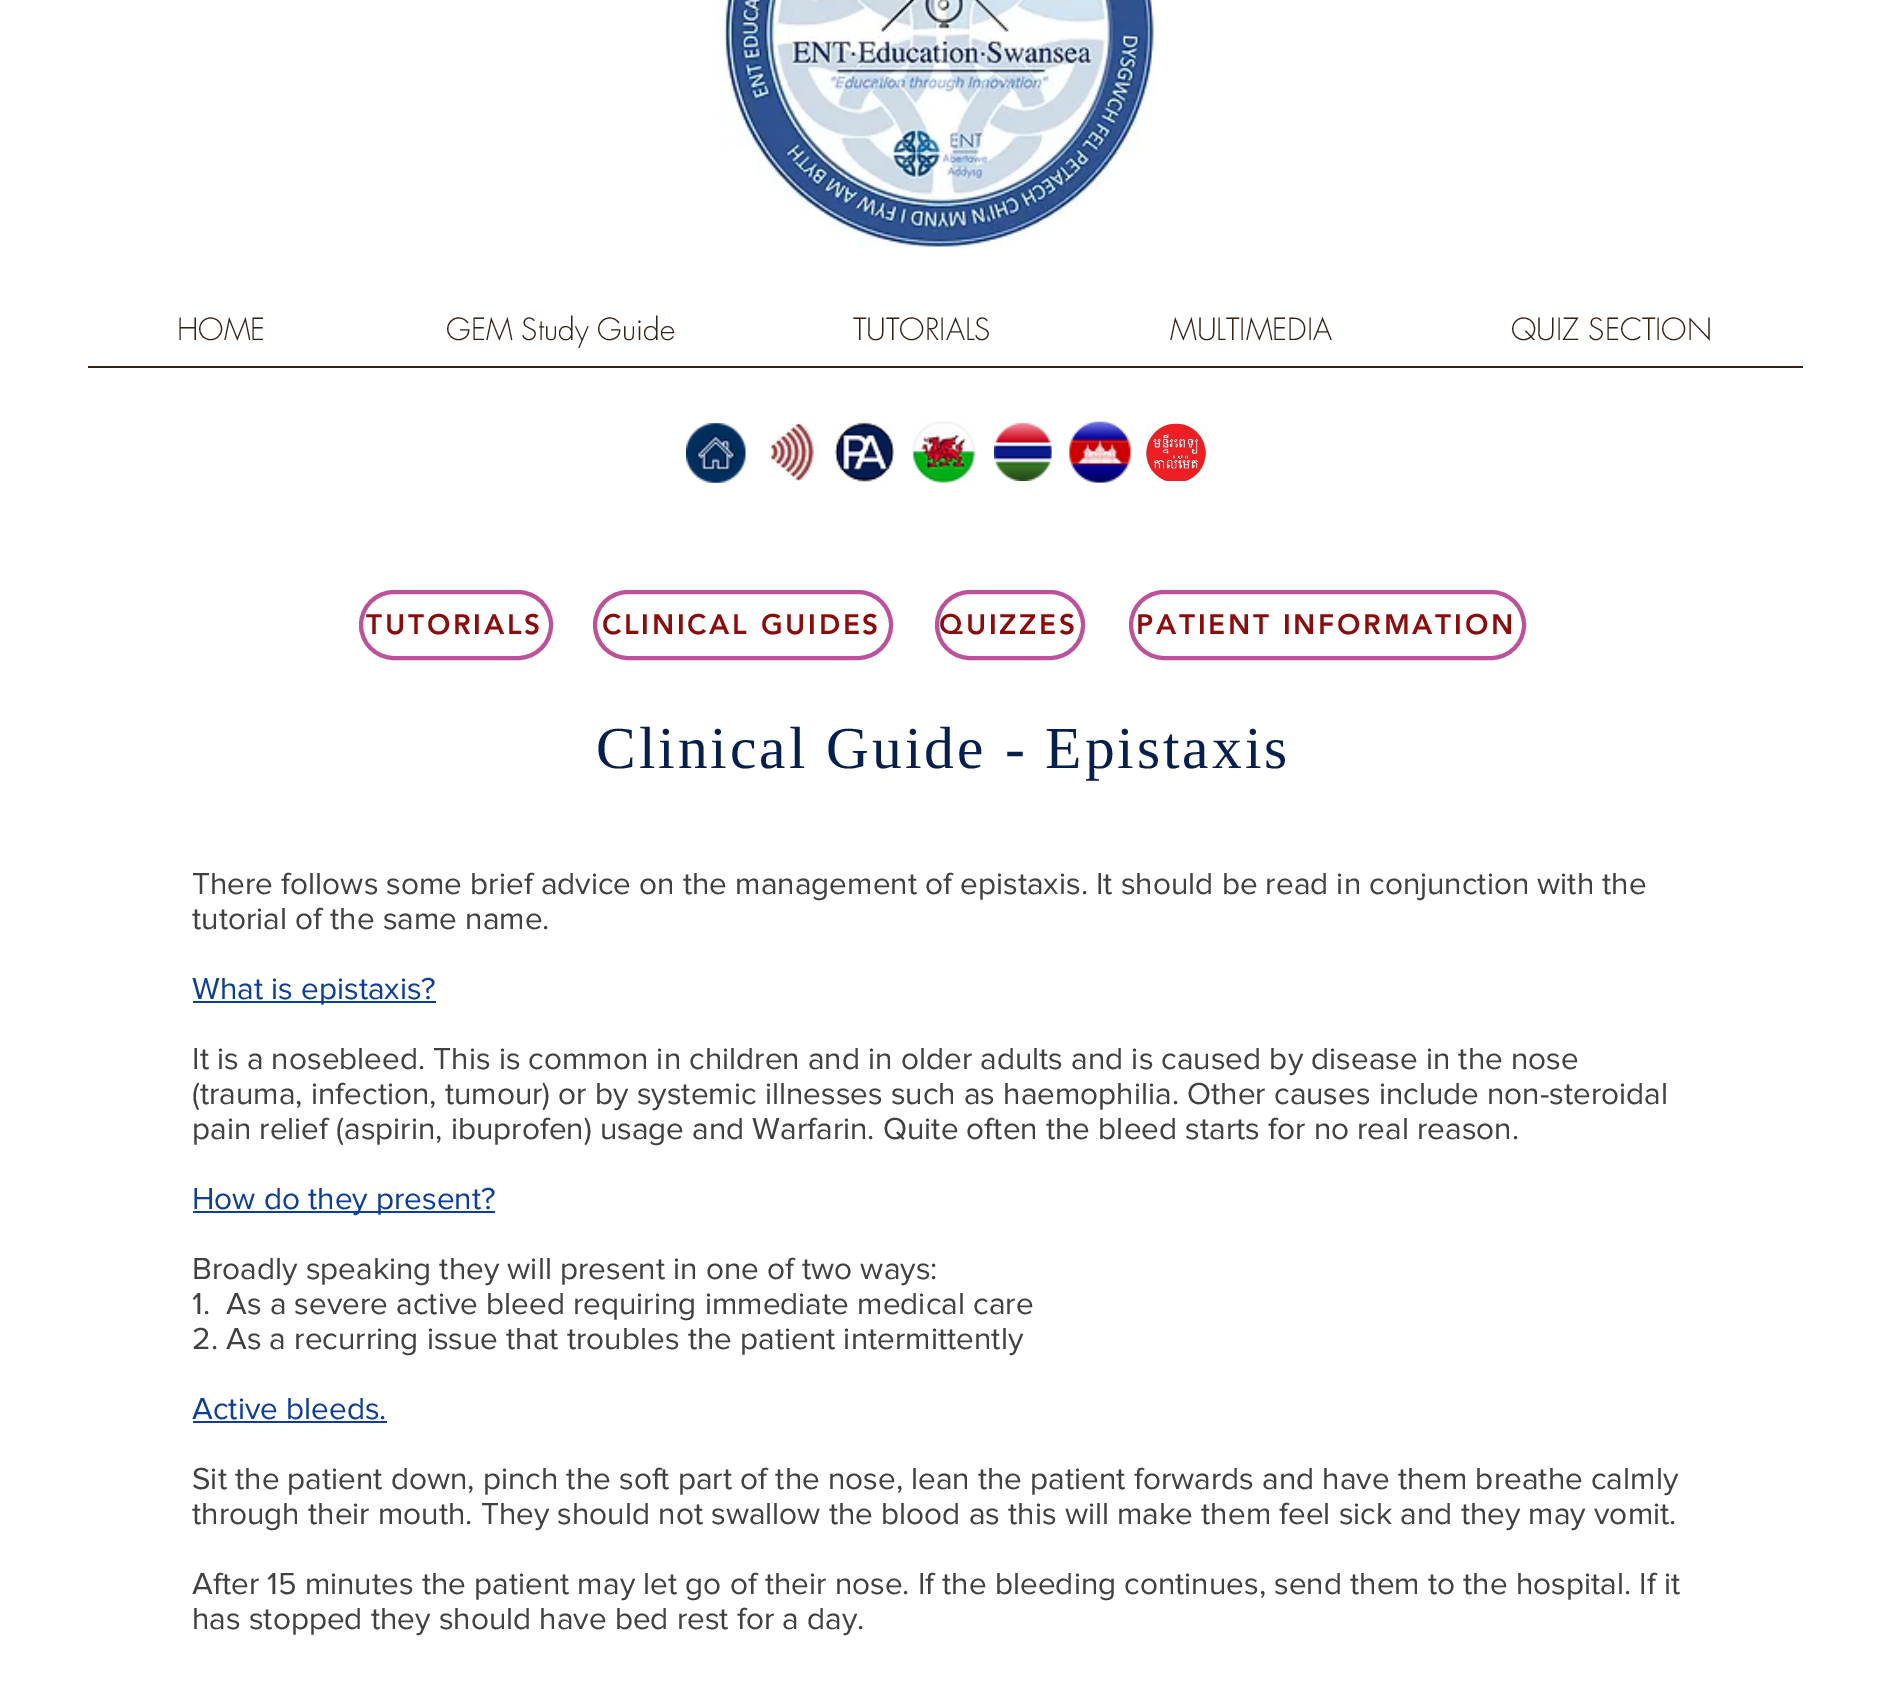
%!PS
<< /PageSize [1888 1689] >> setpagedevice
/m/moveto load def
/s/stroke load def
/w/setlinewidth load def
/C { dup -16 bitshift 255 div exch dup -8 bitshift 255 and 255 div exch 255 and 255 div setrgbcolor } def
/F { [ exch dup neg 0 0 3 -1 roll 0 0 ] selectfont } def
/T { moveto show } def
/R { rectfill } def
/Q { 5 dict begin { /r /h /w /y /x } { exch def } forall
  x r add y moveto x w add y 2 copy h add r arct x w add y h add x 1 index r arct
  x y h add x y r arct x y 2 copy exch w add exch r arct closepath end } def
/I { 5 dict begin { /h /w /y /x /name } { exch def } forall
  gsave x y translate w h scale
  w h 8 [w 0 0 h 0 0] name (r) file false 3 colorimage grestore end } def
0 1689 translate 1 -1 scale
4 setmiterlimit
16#FFFFFF C
0 0 1888 1689 R
(1.rgb) 718 0 440 248 I
/futura-Light 29.75 F
16#342216 C
(HOME) 177 340 T
(GEM Study Guide) 446 340 T
(TUTORIALS) 853 340 T
(MULTIMEDIA) 1170 340 T
(QUIZ SECTION) 1511 340 T
88 366 1715 2 R
(2.rgb) 686 423 60 60 I
(3.rgb) 769 423 50 58 I
(4.rgb) 833 422 62 60 I
(5.rgb) 912 421 63 62 I
(6.rgb) 994 423 58 58 I
(7.rgb) 1069 421 62 62 I
(8.rgb) 1146 423 61 58 I
16#BD529B C
4 w
361 592 190 66 33 Q s
/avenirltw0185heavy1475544-Black 28 F
16#8D0B0B C
366 634 m 2.75 0 (TUTORIALS) ashow
16#BD529B C
595 592 296 66 33 Q s
16#8D0B0B C
602 634 m 2.75 0 (CLINICAL GUIDES) ashow
16#BD529B C
937 592 146 66 33 Q s
16#8D0B0B C
939 634 m 2.75 0 (QUIZZES) ashow
16#BD529B C
1131 592 393 66 33 Q s
16#8D0B0B C
1136 634 m 2.75 0 (PATIENT INFORMATION) ashow
/LiberationSerif-Regular 59.5 F
16#071F4E C
596 768 m 3 0 (Clinical Guide - Epistaxis) ashow
/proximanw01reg-Regular 31.5 F
16#414141 C
(There follows some brief advice on the management of epistaxis. It should be read in conjunction with the) 192 894 T
(tutorial of the same name.) 192 929 T
16#0E3E9B C
193 1001 243 2 R
(What is epistaxis?) 192 999 T
16#414141 C
(It is a nosebleed. This is common in children and in older adults and is caused by disease in the nose) 192 1069 T
(\(trauma, infection, tumour\) or by systemic illnesses such as haemophilia. Other causes include non-steroidal) 192 1104 T
(pain relief \(aspirin, ibuprofen\) usage and Warfarin. Quite often the bleed starts for no real reason.) 192 1139 T
16#0E3E9B C
193 1211 302 2 R
(How do they present?) 192 1209 T
16#414141 C
(Broadly speaking they will present in one of two ways:) 192 1279 T
(1.  As a severe active bleed requiring immediate medical care) 192 1314 T
(2. As a recurring issue that troubles the patient intermittently) 192 1349 T
16#0E3E9B C
(Active bleeds.) 192 1419 T
193 1421 194 2 R
16#414141 C
(Sit the patient down, pinch the soft part of the nose, lean the patient forwards and have them breathe calmly) 192 1489 T
(through their mouth. They should not swallow the blood as this will make them feel sick and they may vomit.) 192 1524 T
(After 15 minutes the patient may let go of their nose. If the bleeding continues, send them to the hospital. If it) 192 1594 T
(has stopped they should have bed rest for a day.) 192 1629 T
showpage
